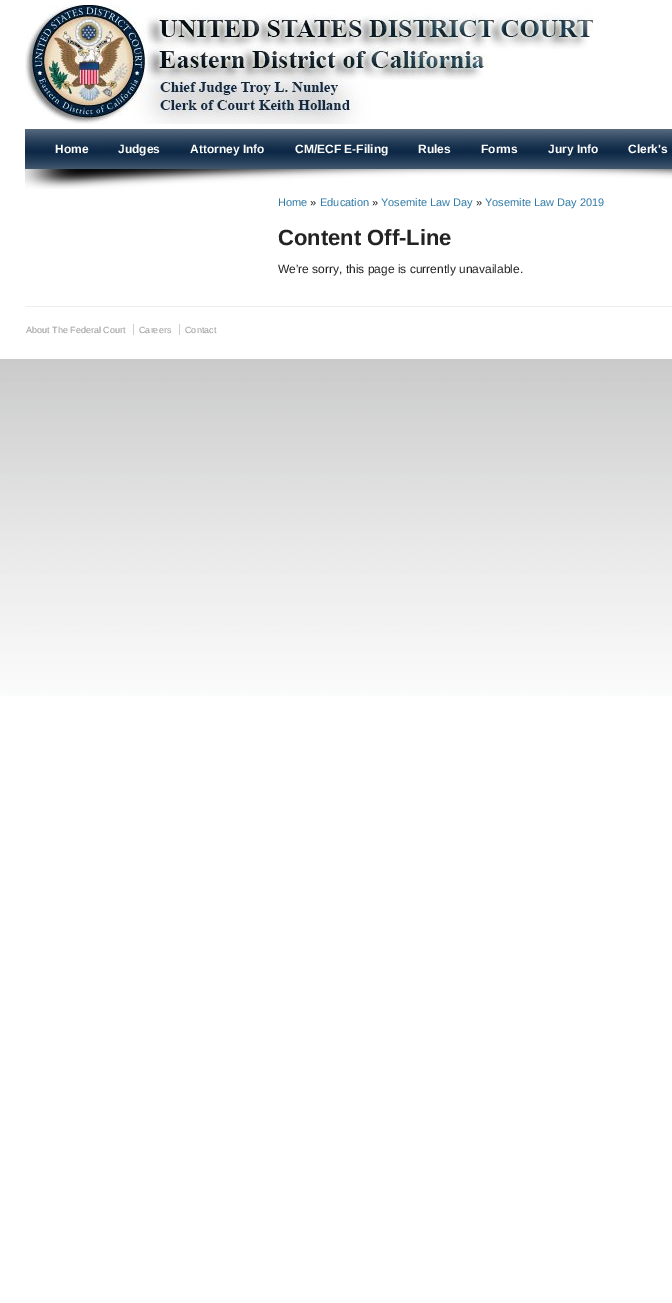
%!PS
<< /PageSize [672 1303] >> setpagedevice
/C { dup -16 bitshift 255 div exch dup -8 bitshift 255 and 255 div exch 255 and 255 div setrgbcolor } def
/F { [ exch dup neg 0 0 3 -1 roll 0 0 ] selectfont } def
/T { moveto show } def
/R { rectfill } def
/I { 5 dict begin { /h /w /y /x /name } { exch def } forall
  gsave x y translate w h scale
  w h 8 [w 0 0 h 0 0] name (r) file false 3 colorimage grestore end } def
0 1303 translate 1 -1 scale
4 setmiterlimit
16#FFFFFF C
0 0 672 1303 R
(1.rgb) 0 359 672 337 I
(2.rgb) 25 5 568 119 I
(3.rgb) 25 129 647 40 I
/LiberationSans-Bold 12 F
(Home) 55 153 T
(Judges) 118 153 T
(Attorney Info) 190 153 T
(CM/ECF E-Filing) 295 153 T
(Rules) 418 153 T
(Forms) 481 153 T
(Jury Info) 548 153 T
(Clerk's) 628 153 T
(4.rgb) 25 169 647 20 I
/LiberationSans-Regular 11 F
16#2E7AA7 C
(Home) 278 206 T
16#232323 C
(») 310 206 T
16#2E7AA7 C
(Education) 320 206 T
16#232323 C
(») 372 206 T
16#2E7AA7 C
(Yosemite Law Day) 381 206 T
16#232323 C
(») 476 206 T
16#2E7AA7 C
(Yosemite Law Day 2019) 485 206 T
/LiberationSans-Bold 22 F
16#232323 C
(Content Off-Line) 278 245 T
/LiberationSans-Regular 12 F
(We're sorry, this page is currently unavailable.) 278 273 T
16#EDEDED C
25 306 647 1 R
/LiberationSans-Regular 9 F
16#999999 C
(About The Federal Court) 26 333 T
(Careers) 139 333 T
16#CFCFCF C
133 324 1 11 R
16#999999 C
(Contact) 185 333 T
16#CFCFCF C
179 324 1 11 R
showpage
